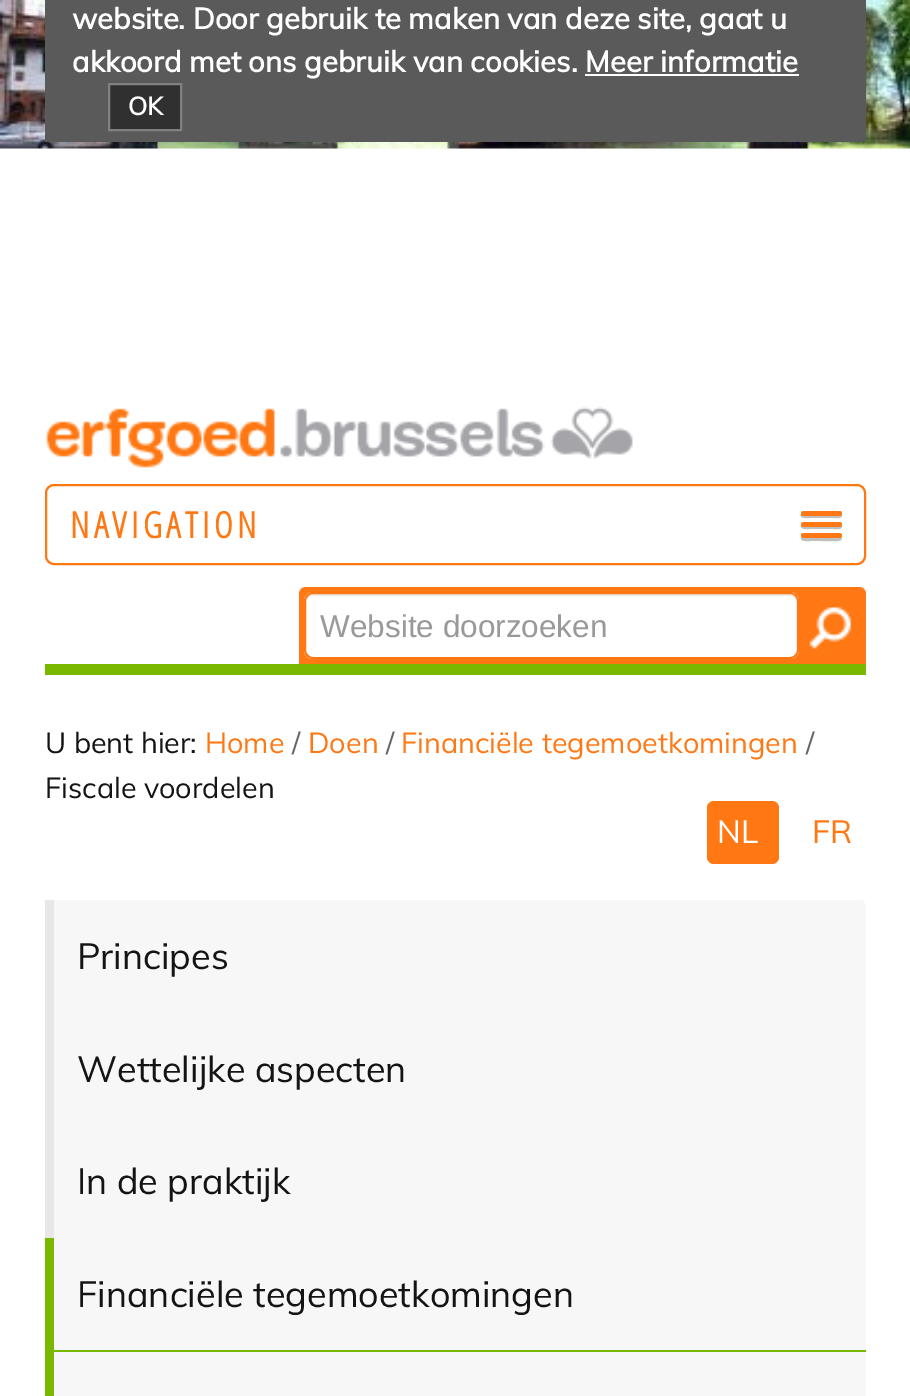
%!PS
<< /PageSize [910 1396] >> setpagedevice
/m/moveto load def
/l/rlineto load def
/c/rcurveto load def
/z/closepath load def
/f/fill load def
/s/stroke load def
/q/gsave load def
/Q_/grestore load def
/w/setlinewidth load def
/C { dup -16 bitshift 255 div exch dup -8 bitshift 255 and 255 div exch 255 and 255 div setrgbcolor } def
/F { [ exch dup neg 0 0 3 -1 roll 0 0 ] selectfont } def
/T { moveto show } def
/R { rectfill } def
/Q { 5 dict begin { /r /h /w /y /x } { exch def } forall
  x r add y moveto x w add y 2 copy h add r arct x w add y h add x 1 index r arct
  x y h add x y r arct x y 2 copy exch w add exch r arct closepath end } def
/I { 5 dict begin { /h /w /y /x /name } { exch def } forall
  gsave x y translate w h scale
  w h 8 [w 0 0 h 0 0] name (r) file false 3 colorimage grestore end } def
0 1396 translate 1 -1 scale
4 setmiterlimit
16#FFFFFF C
0 0 910 1396 R
(1.rgb) 0 0 910 149 I
16#5A5A5A C
45 0 821 142 R
/Muli-Bold 29.25 F
16#FFFFFF C
(website. Door gebruik te maken van deze site, gaat u) 72 29 T
(akkoord met ons gebruik van cookies. Meer informatie) 72 72 T
585 74 214 2 R
16#303030 C
109 84 m 72 0 l 0 46 l -72 0 l z q f Q_
16#808080 C
2 w
s
/Muli-Bold 25 F
16#FFFFFF C
(OK) 128 115 T
(2.rgb) 46 406 587 62 I
16#FF7814 C
46 485 819 79 8 Q s
/OpenSansCondensed-Bold 36 F
70 538 m 4.5 0 (NAVIGATION) ashow
16#BFBFBF C
801 514 m -3 5 8 4 9 4 c 24 0 l 1 0 7 1 8 -2 c -1 -2 l -1 1 l -37 0 l z f
16#FF7814 C
801 511 41 5 2.5 Q f
16#BFBFBF C
801 525 m -2 5 8 4 9 4 c 24 0 l 1 0 7 1 8 -2 c -1 -2 l 0 1 -1 1 -2 1 c -36 0 l -1 0 -1 0 -2 -1 c z f
16#FF7814 C
801 522 41 5 2.5 Q f
16#BFBFBF C
802 537 m -4 5 7 4 8 4 c 12 0 l 3 0 17 1 19 -1 c 1 -1 1 -2 0 -3 c -1 1 l -37 0 l z f
16#FF7814 C
801 533 41 5 2.5 Q f
306 587 m 553 0 l 4 0 7 3 7 7 c 0 70 l -567 0 l 0 -70 l 0 -4 3 -7 7 -7 c z f
16#FFFFFF C
304 592 495 67 9 Q f
16#ECECEC C
313 596 m 477 0 l 3 0 6 3 6 7 c 0 51 l 1 -1 1 -3 1 -4 c 0 -49 l 0 -4 -3 -7 -7 -7 c -477 0 l -4 0 -7 3 -7 7 c 0 2 l 0 -4 3 -7 7 -7 c z f
16#FF7814 C
305 593 493 65 8 Q s
/LiberationSans-Regular 31.5 F
16#999999 C
(Website doorzoeken) 320 637 T
(3.rgb) 809 607 43 42 I
16#7AB800 C
45 664 821 11 R
/Muli-Regular 28.75 F
16#141414 C
(U bent hier:) 45 753 T
16#FF7814 C
(Home) 205 753 T
16#666666 C
(/) 292 753 T
16#FF7814 C
(Doen) 308 753 T
16#666666 C
(/) 386 753 T
16#FF7814 C
(Financiële tegemoetkomingen) 401 753 T
16#666666 C
(/) 806 753 T
16#141414 C
(Fiscale voordelen) 45 798 T
16#FF7814 C
707 801 72 63 7 Q f
/Muli-Regular 32 F
16#FFFFFF C
(NL) 717 843 T
16#FF7814 C
(FR) 812 843 T
16#F7F7F7 C
45 900 821 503 7 Q f
16#E7E7E7 C
45 900 9 338 R
/Muli-Regular 36 F
16#141414 C
(Principes) 77 969 T
(Wettelijke aspecten) 77 1082 T
(In de praktijk) 77 1194 T
16#7AB800 C
45 1238 9 158 R
54 1350 812 2 R
16#141414 C
(Financiële tegemoetkomingen) 77 1307 T
showpage
